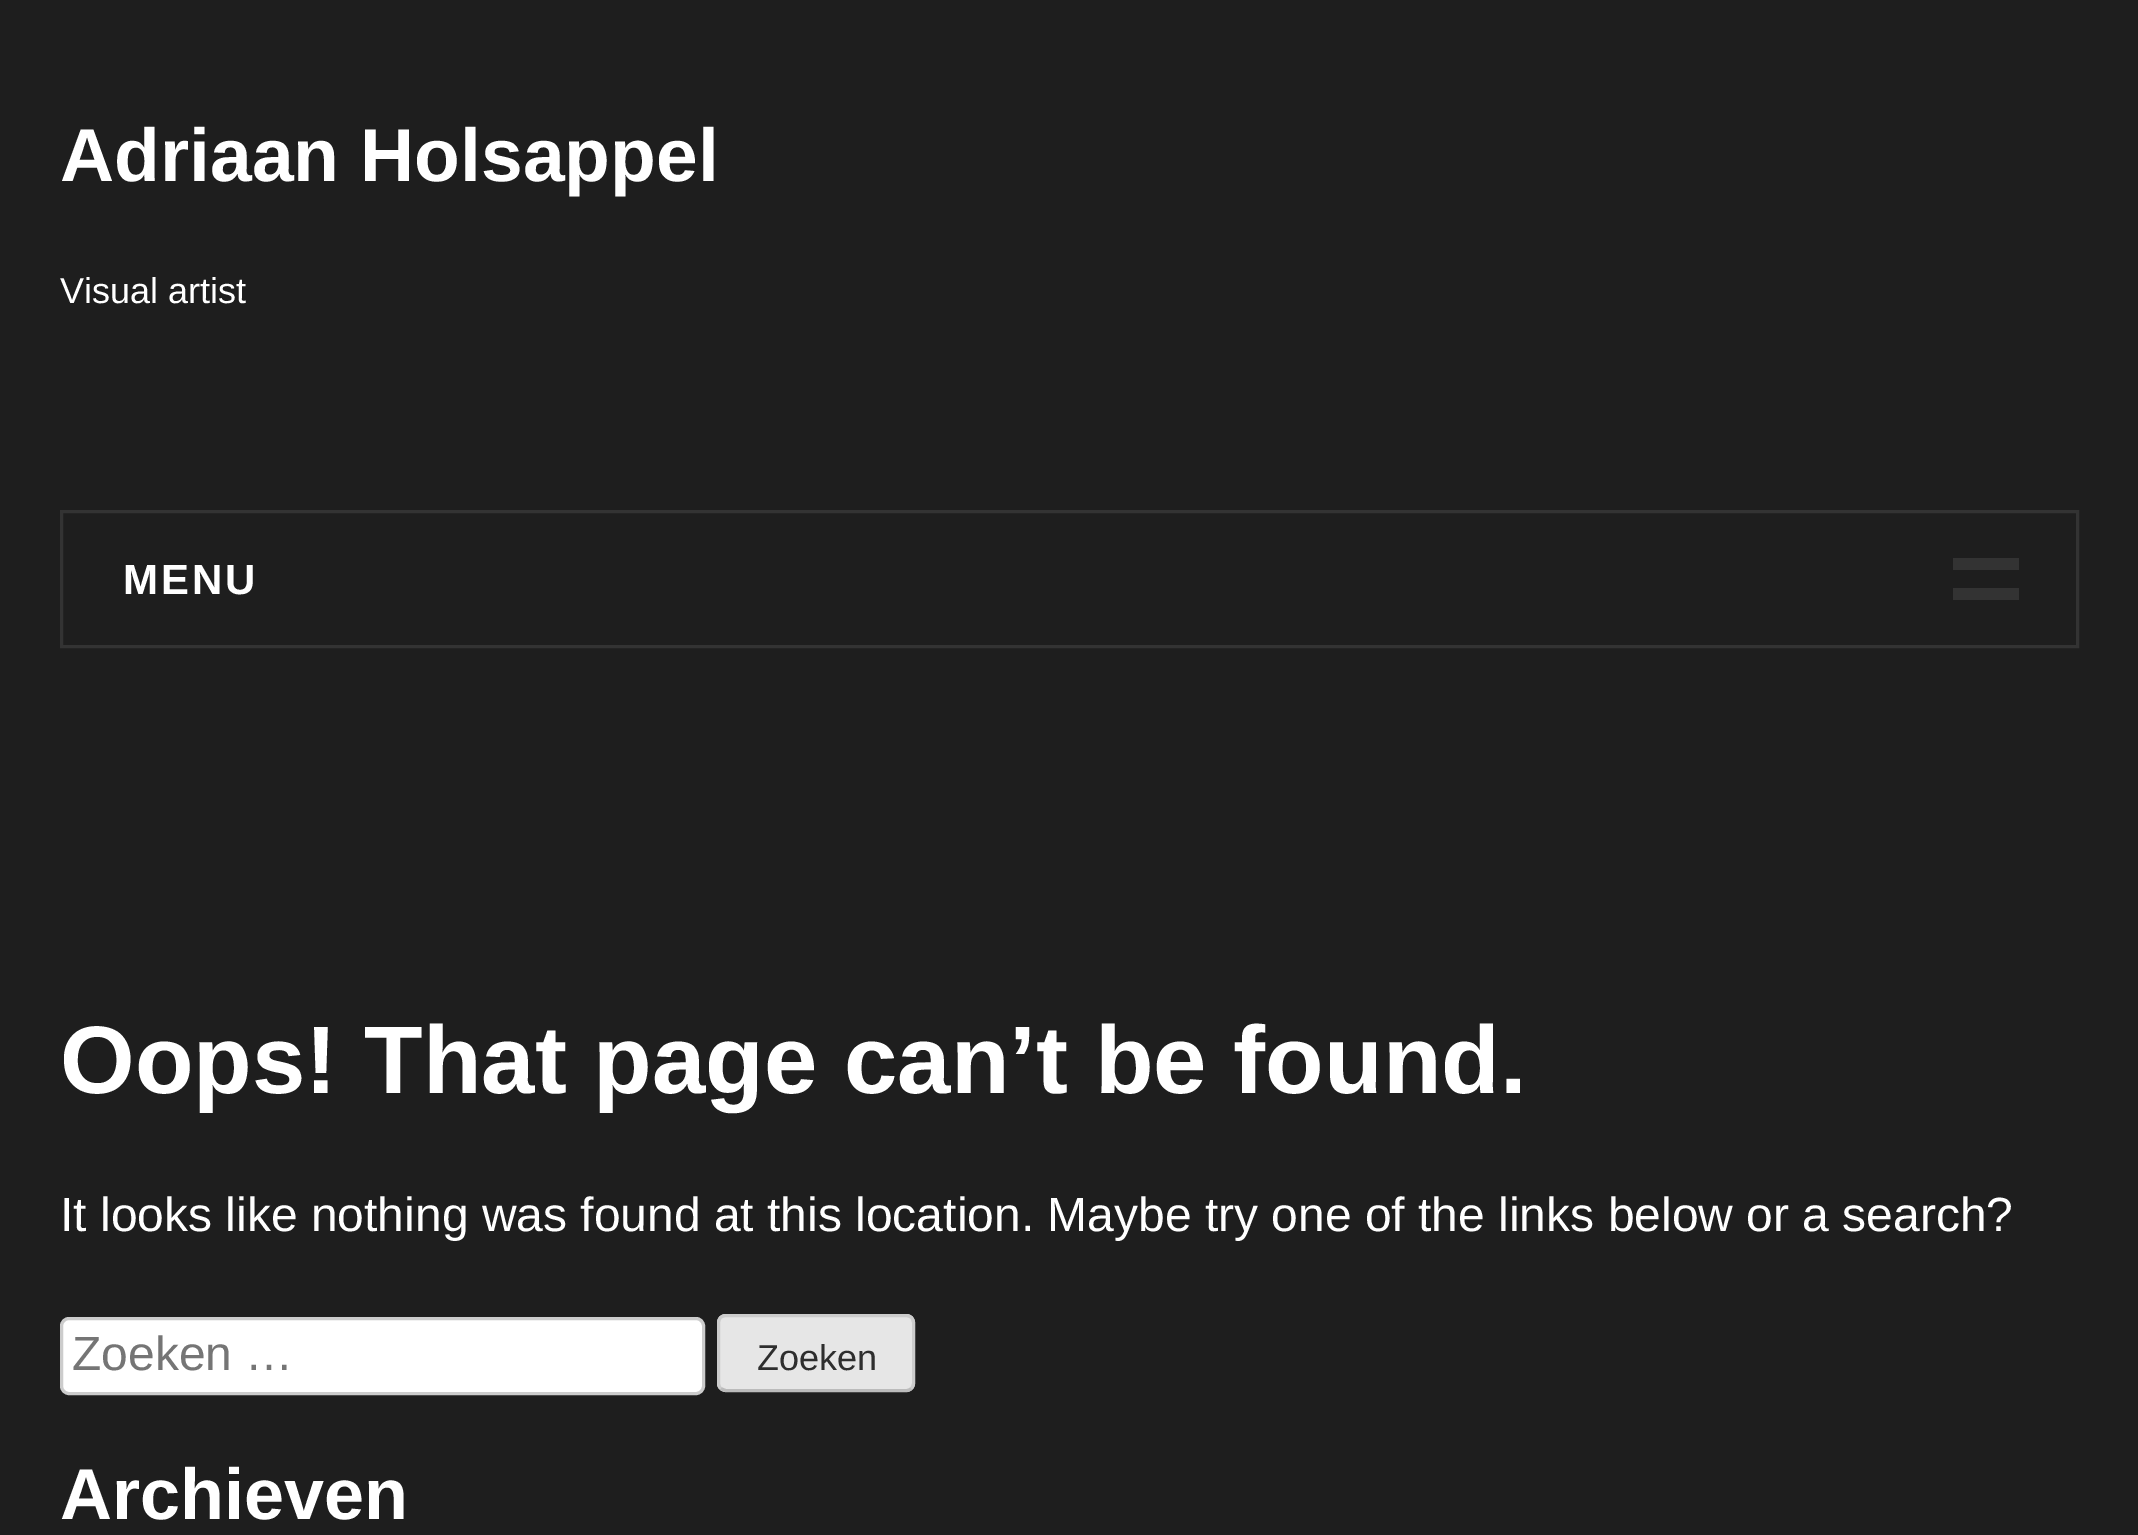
%!PS
<< /PageSize [2138 1535] >> setpagedevice
/m/moveto load def
/l/rlineto load def
/c/rcurveto load def
/f/fill load def
/s/stroke load def
/q/gsave load def
/Q_/grestore load def
/w/setlinewidth load def
/C { dup -16 bitshift 255 div exch dup -8 bitshift 255 and 255 div exch 255 and 255 div setrgbcolor } def
/F { [ exch dup neg 0 0 3 -1 roll 0 0 ] selectfont } def
/T { moveto show } def
/R { rectfill } def
/Q { 5 dict begin { /r /h /w /y /x } { exch def } forall
  x r add y moveto x w add y 2 copy h add r arct x w add y h add x 1 index r arct
  x y h add x y r arct x y 2 copy exch w add exch r arct closepath end } def
0 1535 translate 1 -1 scale
4 setmiterlimit
16#1E1E1E C
0 0 2138 1535 R
/LiberationSans-Bold 75 F
16#FFFFFF C
(Adriaan Holsappel) 60 181 T
/LiberationSans-Regular 36 F
(Visual artist) 60 303 T
16#333333 C
3 w
61.5 511.5 2016 135 rectstroke
/LiberationSans-Bold 42 F
16#FFFFFF C
123 594 m 3 0 (MENU) ashow
16#333333 C
1953 558 66 12 R
1953 588 66 12 R
/LiberationSans-Bold 96 F
16#FFFFFF C
(Oops! That page can’t be found.) 60 1093 T
/LiberationSans-Regular 48 F
(It looks like nothing was found at this location. Maybe try one of the links below or a search?) 60 1231 T
61.5 1318.5 642 75 7.5 Q q f Q_
16#CCCCCC C
s
16#757575 C
(Zoeken …) 72 1370 T
16#E6E6E6 C
717 1314 198 78 9 Q f
16#BBBBBB C
911.5 1388.5 m -1.5 1 -3 2 -5 2 c -181 0 l -5 -2 l s
16#CCCCCC C
720.5 1388.5 m -1 -1.5 -2 -3.5 -2 -5.5 c 0 -60 l 0 -2 1 -4 2 -5.5 c 1.5 -1 3.5 -2 5.5 -2 c 180 0 l 2 0 4 1 5.5 2 c 1 1.5 2 3.5 2 5.5 c 0 60 l 0 2 -1 4 -2 5.5 c s
/LiberationSans-Regular 36 F
16#2E2E2E C
(Zoeken) 757 1370 T
/LiberationSans-Bold 72 F
16#FFFFFF C
(Archieven) 60 1519 T
showpage
